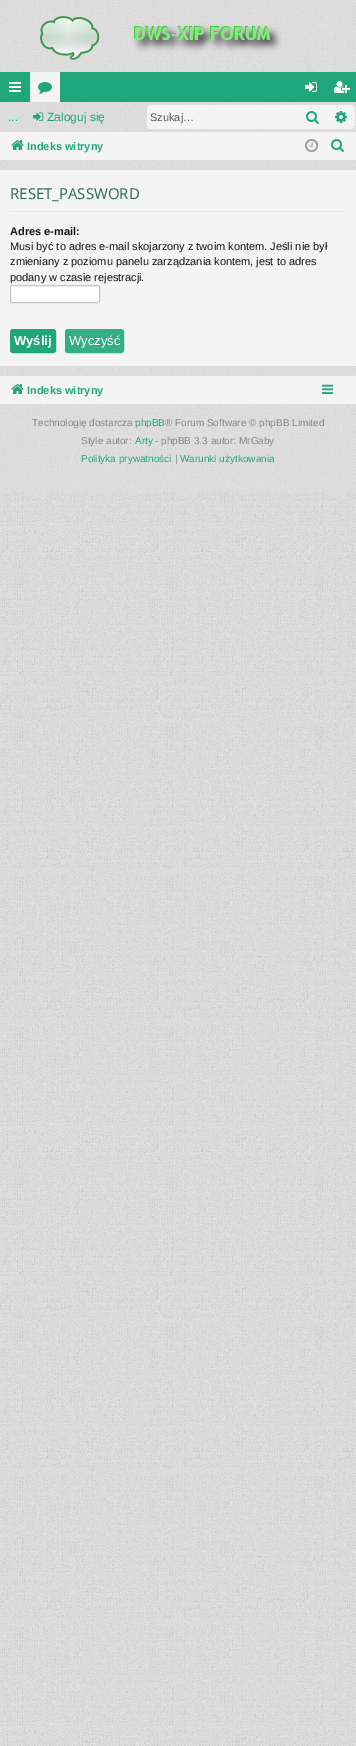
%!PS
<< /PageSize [356 1746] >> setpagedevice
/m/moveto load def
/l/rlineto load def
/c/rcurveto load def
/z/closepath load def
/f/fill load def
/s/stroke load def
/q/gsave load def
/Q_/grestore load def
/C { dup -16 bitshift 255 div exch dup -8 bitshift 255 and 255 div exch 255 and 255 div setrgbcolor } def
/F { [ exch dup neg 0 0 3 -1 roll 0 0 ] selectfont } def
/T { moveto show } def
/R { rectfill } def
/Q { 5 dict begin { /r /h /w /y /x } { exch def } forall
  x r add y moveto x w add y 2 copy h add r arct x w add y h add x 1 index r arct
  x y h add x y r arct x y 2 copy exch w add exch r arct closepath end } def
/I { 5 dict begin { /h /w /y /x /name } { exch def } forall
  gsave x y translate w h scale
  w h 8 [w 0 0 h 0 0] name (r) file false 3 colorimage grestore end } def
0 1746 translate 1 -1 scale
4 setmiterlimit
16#E0E0E0 C
0 0 356 1746 R
(1.rgb) 0 493 356 1253 I
(2.rgb) 0 0 356 1746 I
(3.rgb) 40 16 242 44 I
16#1FA67A C
0 72 356 30 R
(4.rgb) 9 82 12 10 I
16#F4F4F4 C
30 72 30 30 R
(5.rgb) 38 82 14 12 I
(6.rgb) 305 82 12 10 I
(7.rgb) 334 81 16 12 I
/LiberationSans-Regular 12 F
16#1FA67A C
(...) 8 121 T
(8.rgb) 33 112 11 9 I
(Zaloguj się) 47 121 T
16#F4F4F4 C
151 105 m 146 0 l 0 24 l -146 0 l -2 0 -4 -2 -4 -4 c 0 -16 l 0 -2 2 -4 4 -4 c z f
/LiberationSans-Regular 11 F
16#5B5B5B C
(Szukaj…) 150 121 T
16#F4F4F4 C
297 105 30 24 R
(9.rgb) 306 111 13 13 I
327 105 m 24 0 l 2 0 4 2 4 4 c 0 16 l 0 2 -2 4 -4 4 c -24 0 l z f
(10.rgb) 335 111 12 12 I
0 132 356 28 R
(11.rgb) 11 140 13 10 I
/LiberationSans-Bold 11 F
16#1FA67A C
(Indeks witryny) 27 150 T
(12.rgb) 305 138 14 15 I
(9.rgb) 331 139 13 13 I
16#F4F4F4 C
0 170 356 196 R
16#E7E7E7 C
10 211 336 1 R
/OpenSans-Regular 15 F
16#296954 C
(RESET_PASSWORD) 10 199 T
/LiberationSans-Bold 11 F
16#141414 C
(Adres e-mail:) 10 235 T
/LiberationSans-Regular 11 F
(Musi być to adres e-mail skojarzony z twoim kontem. Jeśli nie był) 10 250 T
(zmieniany z poziomu panelu zarządzania kontem, jest to adres) 10 265 T
(podany w czasie rejestracji.) 10 281 T
16#FFFFFF C
10.5 285.5 89 17 1.5 Q q f Q_
16#C6C6C6 C
s
16#1FA67A C
10.5 329.5 45 23 2.5 Q q f Q_
s
/LiberationSans-Bold 13 F
16#FFFFFF C
(Wyślij) 14 345 T
16#34AE86 C
65.5 329.5 58 23 2.5 Q q f Q_
s
/LiberationSans-Regular 13 F
16#FFFFFF C
(Wyczyść) 69 345 T
16#F4F4F4 C
0 376 356 28 R
(11.rgb) 11 384 13 10 I
/LiberationSans-Bold 11 F
16#1FA67A C
(Indeks witryny) 27 394 T
(13.rgb) 322 384 12 10 I
/LiberationSans-Regular 10 F
16#868686 C
(Technologię dostarcza) 32 426 T
16#1FA67A C
(phpBB) 135 426 T
16#868686 C
(® Forum Software © phpBB Limited) 165 426 T
(Style autor:) 81 444 T
16#1FA67A C
(Arty) 135 444 T
16#868686 C
(- phpBB 3.3 autor: MrGaby) 155 444 T
16#1FA67A C
(Polityka prywatności) 81 462 T
16#868686 C
(|) 175 462 T
16#1FA67A C
(Warunki użytkowania) 180 462 T
showpage
